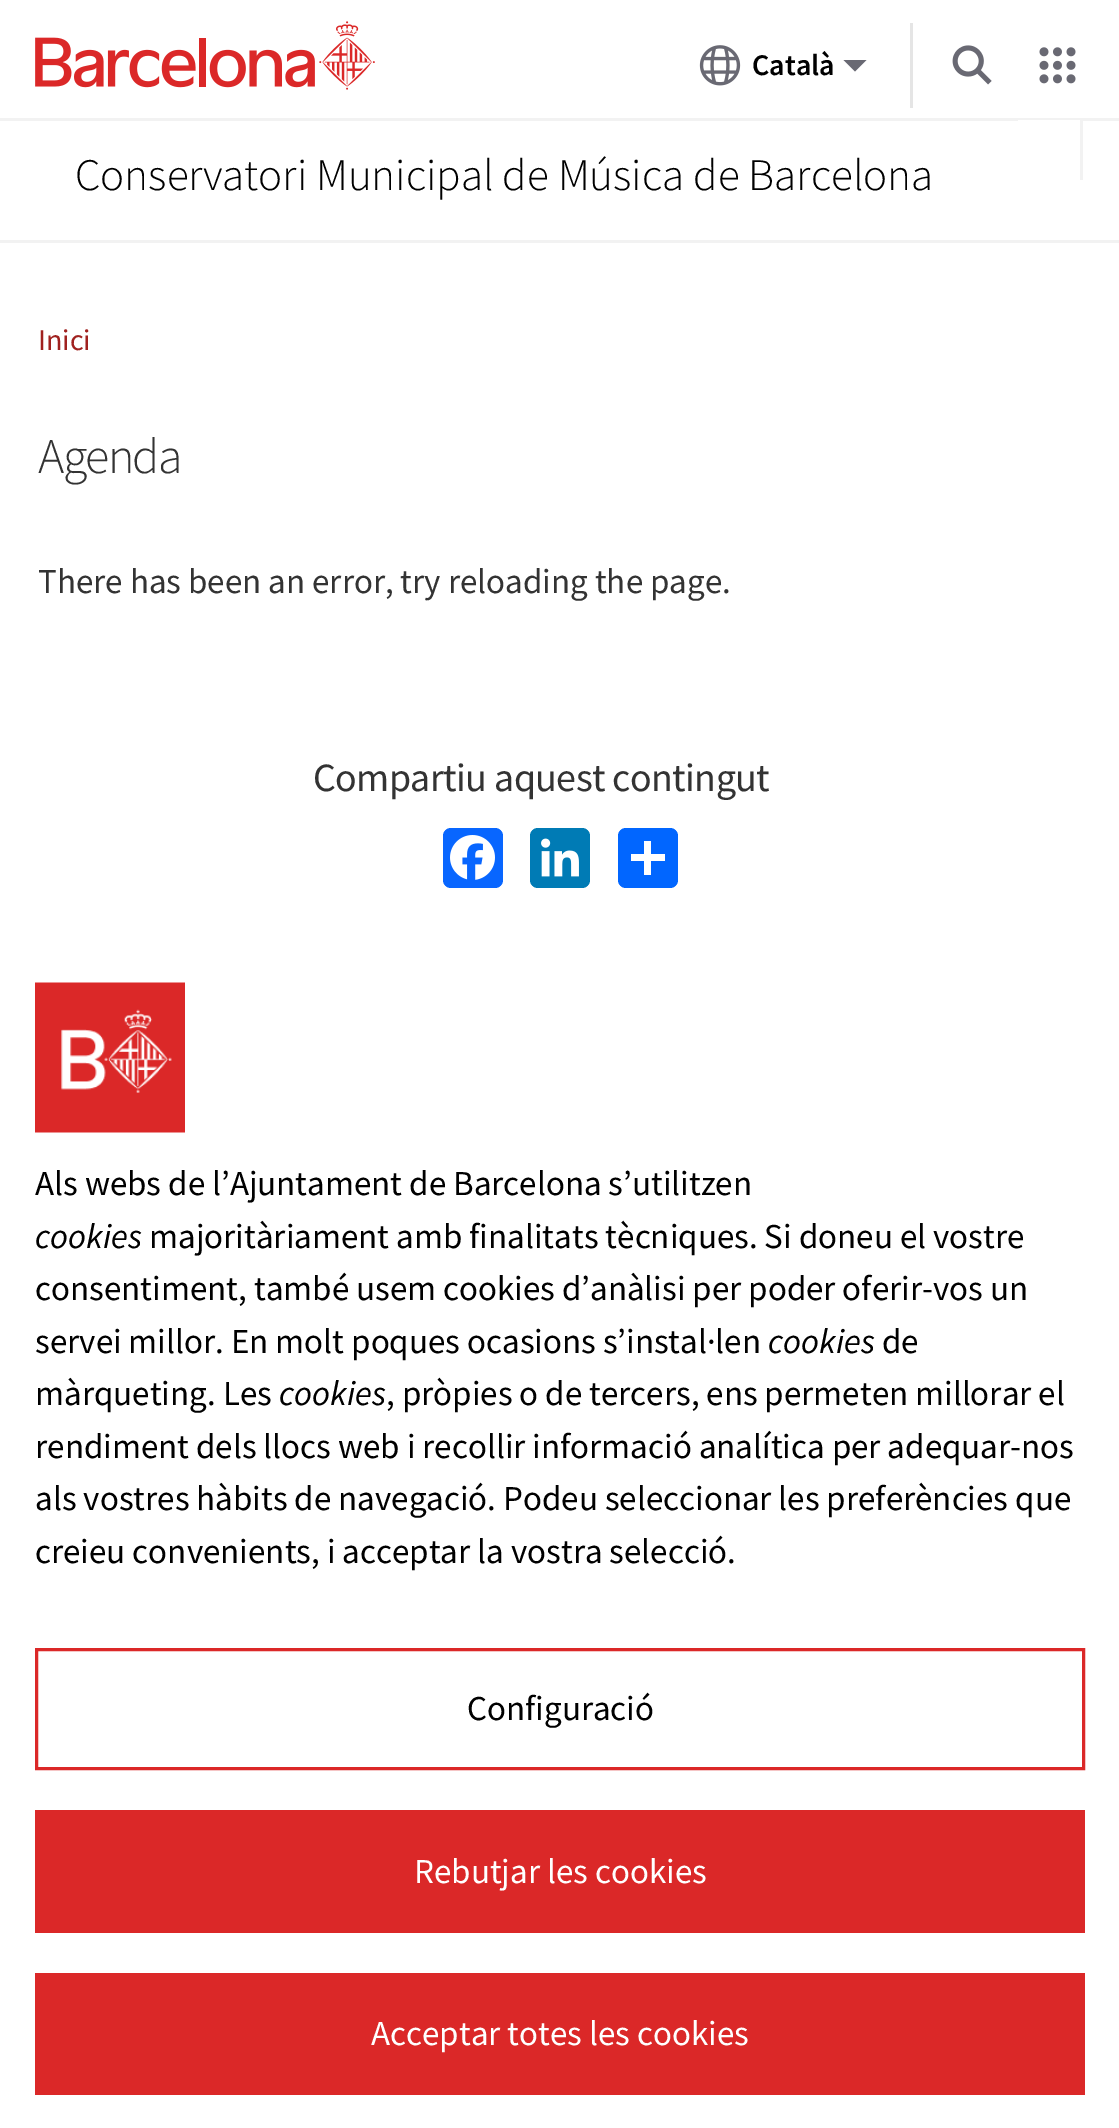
%!PS
<< /PageSize [1119 2128] >> setpagedevice
/m/moveto load def
/l/rlineto load def
/z/closepath load def
/f/fill load def
/w/setlinewidth load def
/C { dup -16 bitshift 255 div exch dup -8 bitshift 255 and 255 div exch 255 and 255 div setrgbcolor } def
/F { [ exch dup neg 0 0 3 -1 roll 0 0 ] selectfont } def
/T { moveto show } def
/R { rectfill } def
/Q { 5 dict begin { /r /h /w /y /x } { exch def } forall
  x r add y moveto x w add y 2 copy h add r arct x w add y h add x 1 index r arct
  x y h add x y r arct x y 2 copy exch w add exch r arct closepath end } def
/I { 5 dict begin { /h /w /y /x /name } { exch def } forall
  gsave x y translate w h scale
  w h 8 [w 0 0 h 0 0] name (r) file false 3 colorimage grestore end } def
0 2128 translate 1 -1 scale
4 setmiterlimit
16#FFFFFF C
0 0 1119 2128 R
(1.rgb) 35 21 340 69 I
16#E5E5E5 C
910 23 3 85 R
(2.rgb) 699 45 42 41 I
/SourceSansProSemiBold-SemiBold 30 F
16#000000 C
(Català) 752 75 T
16#696973 C
843.5 60 m 11.5 11.5 l 11.5 -11.5 l z f
(3.rgb) 952 45 40 40 I
(4.rgb) 1039 47 37 37 I
16#F2F2F2 C
0 118 1119 3 R
0 240 1119 3 R
/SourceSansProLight-Light 45 F
16#000000 C
(Conservatori Municipal de Música de Barcelona) 75 190 T
16#FFFFFF C
1018 120 62 1 R
16#F2F2F2 C
1080 120 3 60 R
/SourceSansPro-Regular 30 F
16#A0211F C
(Inici) 38 350 T
/SourceSansProLight-Light 50 F
16#333333 C
38 473 m -1.75 0 (Agenda) ashow
/SourceSansPro-Regular 35 F
(There has been an error, try reloading the page.) 38 593 T
/SourceSansPro-Regular 40 F
313 791 m -.6 0 (Compartiu aquest contingut) ashow
16#0866FF C
443 828 60 60 8 Q f
(5.rgb) 450 835 45 45 I
16#007BB5 C
530 828 60 60 8 Q f
(6.rgb) 541 838 38 39 I
16#0166FF C
618 828 60 60 8 Q f
16#FFFFFF C
644 841 7 34 R
631 854 34 7 R
(7.rgb) 35 982 150 151 I
/SourceSansPro-Regular 35 F
16#000000 C
(Als webs de l’Ajuntament de Barcelona s’utilitzen) 35 1195 T
/SourceSansPro-Italic 35 F
(cookies) 35 1248 T
/SourceSansPro-Regular 35 F
(majoritàriament amb finalitats tècniques. Si doneu el vostre) 149 1248 T
(consentiment, també usem cookies d’anàlisi per poder oferir-vos un) 35 1300 T
(servei millor. En molt poques ocasions s’instal·len) 35 1353 T
/SourceSansPro-Italic 35 F
(cookies) 768 1353 T
/SourceSansPro-Regular 35 F
(de) 882 1353 T
(màrqueting. Les) 35 1405 T
/SourceSansPro-Italic 35 F
(cookies) 279 1405 T
/SourceSansPro-Regular 35 F
(, pròpies o de tercers, ens permeten millorar el) 386 1405 T
(rendiment dels llocs web i recollir informació analítica per adequar-nos) 35 1458 T
(als vostres hàbits de navegació. Podeu seleccionar les preferències que) 35 1510 T
(creieu convenients, i acceptar la vostra selecció.) 35 1563 T
16#DB2828 C
3 w
36.5 1649.5 1047 119 rectstroke
16#000000 C
(Configuració) 467 1720 T
16#DB2828 C
35 1810 1050 123 R
16#FFFFFF C
(Rebutjar les cookies) 414 1883 T
16#DB2828 C
35 1973 1050 122 R
16#FFFFFF C
(Acceptar totes les cookies) 371 2045 T
showpage
